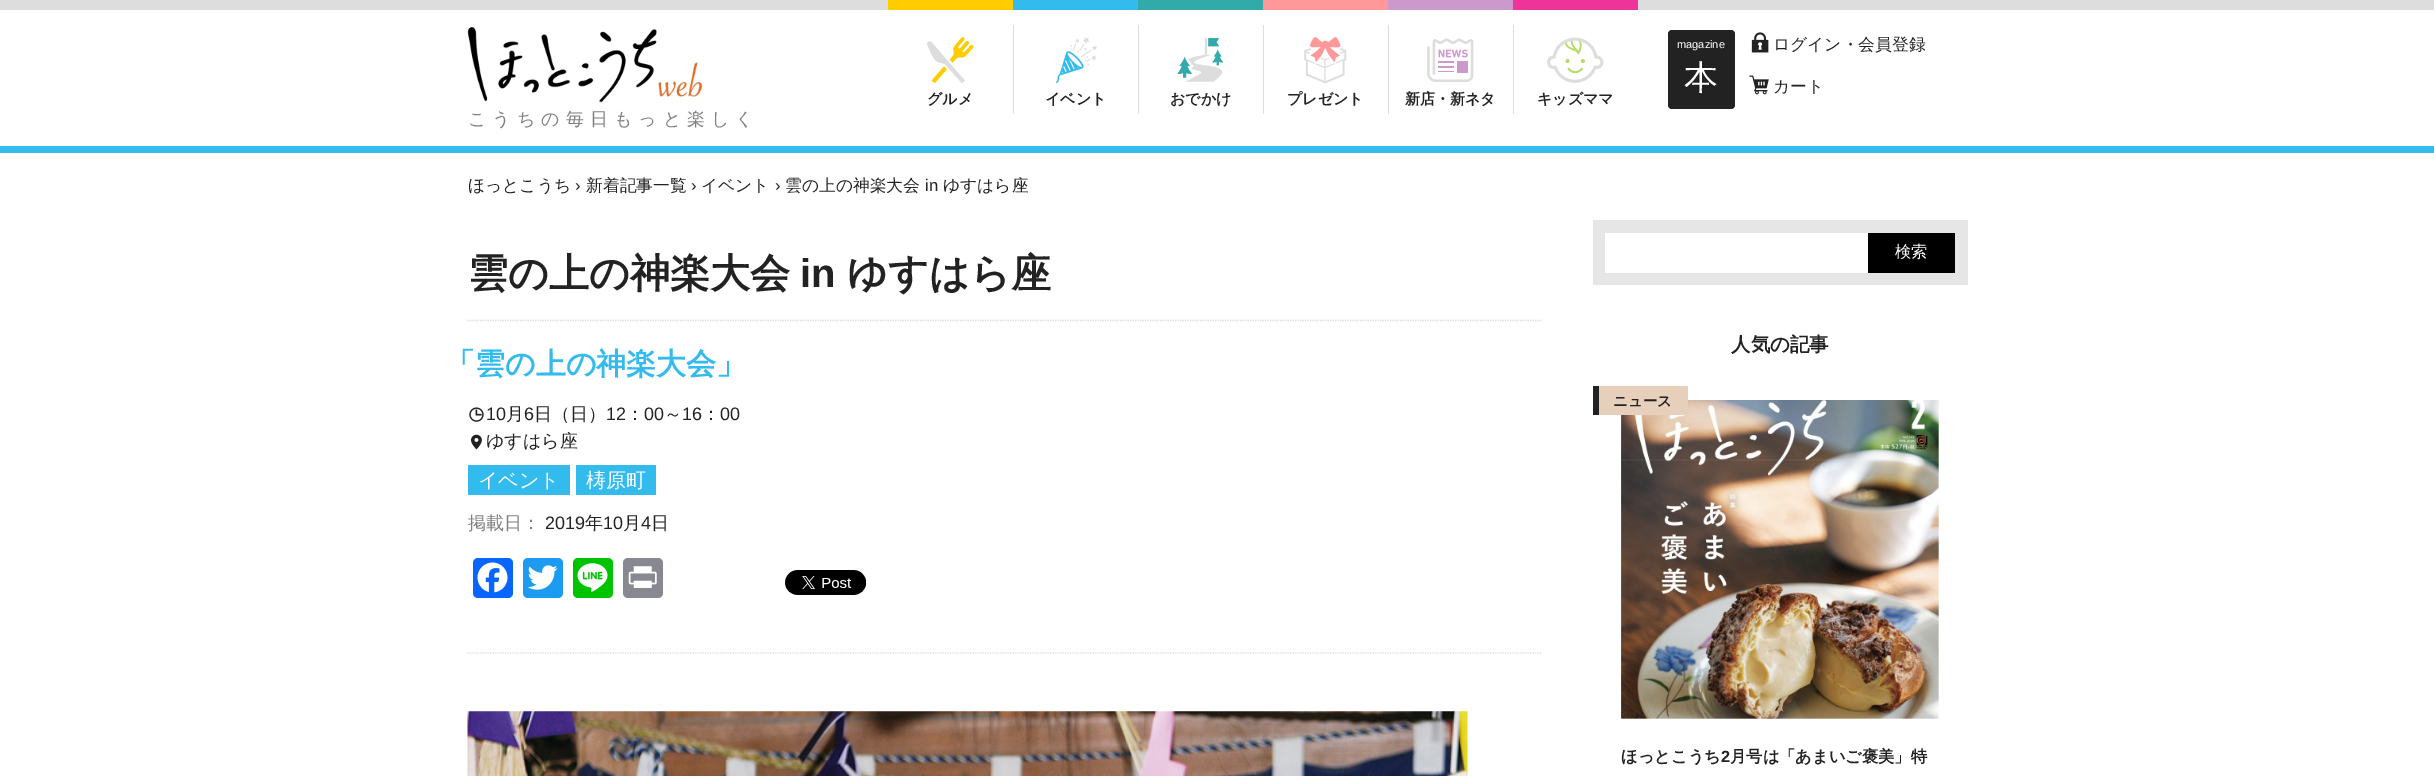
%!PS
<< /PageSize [2434 776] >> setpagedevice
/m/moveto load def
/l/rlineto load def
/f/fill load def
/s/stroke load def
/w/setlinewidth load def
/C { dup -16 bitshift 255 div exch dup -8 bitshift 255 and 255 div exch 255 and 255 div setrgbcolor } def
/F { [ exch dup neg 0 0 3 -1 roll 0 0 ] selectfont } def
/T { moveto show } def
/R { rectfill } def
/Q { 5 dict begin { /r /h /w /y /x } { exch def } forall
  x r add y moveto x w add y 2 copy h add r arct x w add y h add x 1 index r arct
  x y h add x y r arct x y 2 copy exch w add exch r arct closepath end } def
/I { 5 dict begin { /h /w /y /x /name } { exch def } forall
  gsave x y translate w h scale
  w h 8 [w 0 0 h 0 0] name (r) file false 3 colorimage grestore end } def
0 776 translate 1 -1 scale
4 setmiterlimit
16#FFFFFF C
0 0 2434 776 R
16#DDDDDD C
0 0 2434 10 R
16#33BBEE C
0 146 2434 7 R
16#222222 C
1668 30 67 79 4 Q f
/LiberationSans-Regular 11 F
16#FFFFFF C
(magazine) 1677 48 T
/WenQuanYiZenHei-Medium 34 F
(本) 1684 89 T
(1.rgb) 1751 32 18 21 I
/WenQuanYiZenHei-Medium 16.75 F
16#222222 C
(ログイン・会員登録) 1773 50 T
(2.rgb) 1749 75 20 20 I
(カート) 1773 92 T
16#FFCC00 C
888 0 125 10 R
(3.rgb) 927 37 47 47 I
/WenQuanYiZenHei-Bold 15 F
16#222222 C
(グルメ) 927 104 T
16#33BBEE C
1013 0 125 10 R
16#DDDDDD C
1013 25 1 89 R
(4.rgb) 1055 37 42 47 I
16#222222 C
(イベント) 1045 104 T
16#33AAAA C
1138 0 125 10 R
16#DDDDDD C
1138 25 1 89 R
(5.rgb) 1177 38 47 44 I
16#222222 C
(おでかけ) 1170 104 T
16#FF9999 C
1263 0 125 10 R
16#DDDDDD C
1263 25 1 89 R
(6.rgb) 1304 37 43 47 I
16#222222 C
(プレゼント) 1287 104 T
16#CC99CC C
1388 0 125 10 R
16#DDDDDD C
1388 25 1 89 R
(7.rgb) 1427 38 47 44 I
16#222222 C
(新店・新ネタ) 1405 104 T
16#EE3399 C
1513 0 125 10 R
16#DDDDDD C
1513 25 1 89 R
(8.rgb) 1547 37 57 46 I
16#222222 C
(キッズママ) 1537 104 T
(9.rgb) 467 27 236 76 I
/WenQuanYiZenHei-Medium 18 F
16#808080 C
468 125 m 6 0 (こうちの毎日もっと楽しく) ashow
/WenQuanYiZenHei-Medium 16.75 F
16#222222 C
(ほっとこうち) 468 191 T
/LiberationSans-Regular 16.75 F
(›) 575 191 T
/WenQuanYiZenHei-Medium 16.75 F
(新着記事一覧) 586 191 T
/LiberationSans-Regular 16.75 F
(›) 691 191 T
/WenQuanYiZenHei-Medium 16.75 F
(イベント) 701 191 T
/LiberationSans-Regular 16.75 F
(›) 775 191 T
/WenQuanYiZenHei-Medium 16.75 F
(雲の上の神楽大会) 785 191 T
/LiberationSans-Regular 16.75 F
(in) 925 191 T
/WenQuanYiZenHei-Medium 16.75 F
(ゆすはら座) 943 191 T
16#DDDDDD C
1.2 w
[1.25 1.25] 0 setdash
467.5 653 m 1075 0 l s
467.5 320.5 m 1075 0 l s
/WenQuanYiZenHei-Bold 40 F
16#222222 C
(雲の上の神楽大会) 468 287 T
/LiberationSans-Bold 40 F
(in) 800 287 T
/WenQuanYiZenHei-Bold 40 F
(ゆすはら座) 847 287 T
/WenQuanYiZenHei-Bold 30 F
16#33BBEE C
(「雲の上の神楽大会」) 445 374 T
(10.rgb) 469 407 15 15 I
/LiberationSans-Regular 18 F
16#222222 C
(10) 486 420 T
/WenQuanYiZenHei-Medium 18 F
(月) 506 420 T
/LiberationSans-Regular 18 F
(6) 524 420 T
/WenQuanYiZenHei-Medium 18 F
(日（日）) 534 420 T
/LiberationSans-Regular 18 F
(12) 606 420 T
/WenQuanYiZenHei-Medium 18 F
(：) 626 420 T
/LiberationSans-Regular 18 F
(00) 644 420 T
/WenQuanYiZenHei-Medium 18 F
(～) 664 420 T
/LiberationSans-Regular 18 F
(16) 682 420 T
/WenQuanYiZenHei-Medium 18 F
(：) 702 420 T
/LiberationSans-Regular 18 F
(00) 720 420 T
(11.rgb) 471 434 11 16 I
/WenQuanYiZenHei-Medium 18 F
(ゆすはら座) 486 447 T
16#33BBEE C
468 465 102 30 R
/WenQuanYiZenHei-Medium 20 F
16#FFFFFF C
(イベント) 478 487 T
16#33BBEE C
576 465 80 30 R
16#FFFFFF C
(梼原町) 586 487 T
/WenQuanYiZenHei-Medium 18 F
16#808080 C
(掲載日：) 468 529 T
/LiberationSans-Regular 18 F
16#222222 C
(2019) 545 529 T
/WenQuanYiZenHei-Medium 18 F
(年) 585 529 T
/LiberationSans-Regular 18 F
(10) 603 529 T
/WenQuanYiZenHei-Medium 18 F
(月) 623 529 T
/LiberationSans-Regular 18 F
(4) 641 529 T
/WenQuanYiZenHei-Medium 18 F
(日) 651 529 T
16#0866FF C
473 558 40 40 5 Q f
(12.rgb) 477 562 31 31 I
16#1D9BF0 C
523 558 40 40 5 Q f
(13.rgb) 527 565 31 25 I
16#00C300 C
573 558 40 40 5 Q f
(14.rgb) 577 563 31 29 I
16#888990 C
623 558 40 40 5 Q f
(15.rgb) 628 566 29 22 I
(16.rgb) 785 570 82 25 I
(17.rgb) 467 711 1001 65 I
16#E6E6E6 C
1593 220 375 65 R
16#FFFFFF C
1605 233 263 40 R
16#000000 C
1868 233 87 40 R
/WenQuanYiZenHei-Medium 16.25 F
16#FFFFFF C
(検索) 1895 257 T
/WenQuanYiZenHei-Bold 19.5 F
16#222222 C
(人気の記事) 1731 351 T
(18.rgb) 1621 400 318 319 I
(19.rgb) 1621 400 318 319 I
16#E6D0BC C
1599 386 89 29 R
16#222222 C
1593 386 6 29 R
/WenQuanYiZenHei-Bold 14.5 F
(ニュース) 1613 406 T
/WenQuanYiZenHei-Bold 16.25 F
(ほっとこうち) 1621 762 T
/LiberationSans-Bold 16.25 F
(2) 1721 762 T
/WenQuanYiZenHei-Bold 16.25 F
(月号は「あまいご褒美」特) 1730 762 T
showpage
